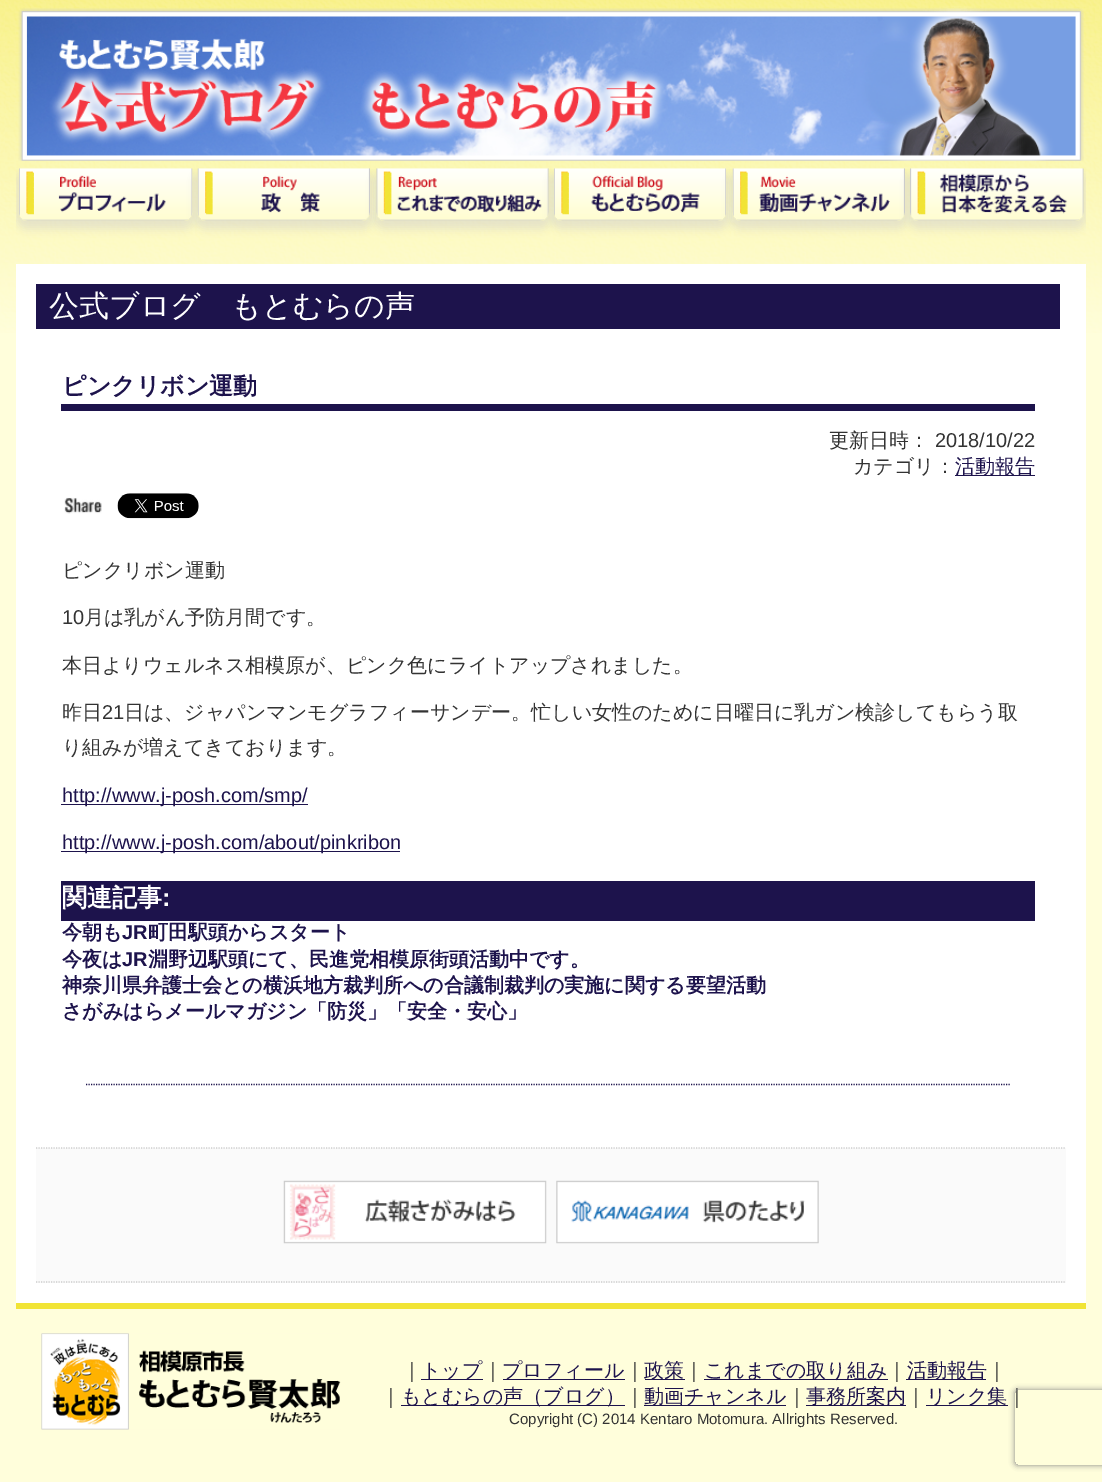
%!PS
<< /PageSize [1102 1482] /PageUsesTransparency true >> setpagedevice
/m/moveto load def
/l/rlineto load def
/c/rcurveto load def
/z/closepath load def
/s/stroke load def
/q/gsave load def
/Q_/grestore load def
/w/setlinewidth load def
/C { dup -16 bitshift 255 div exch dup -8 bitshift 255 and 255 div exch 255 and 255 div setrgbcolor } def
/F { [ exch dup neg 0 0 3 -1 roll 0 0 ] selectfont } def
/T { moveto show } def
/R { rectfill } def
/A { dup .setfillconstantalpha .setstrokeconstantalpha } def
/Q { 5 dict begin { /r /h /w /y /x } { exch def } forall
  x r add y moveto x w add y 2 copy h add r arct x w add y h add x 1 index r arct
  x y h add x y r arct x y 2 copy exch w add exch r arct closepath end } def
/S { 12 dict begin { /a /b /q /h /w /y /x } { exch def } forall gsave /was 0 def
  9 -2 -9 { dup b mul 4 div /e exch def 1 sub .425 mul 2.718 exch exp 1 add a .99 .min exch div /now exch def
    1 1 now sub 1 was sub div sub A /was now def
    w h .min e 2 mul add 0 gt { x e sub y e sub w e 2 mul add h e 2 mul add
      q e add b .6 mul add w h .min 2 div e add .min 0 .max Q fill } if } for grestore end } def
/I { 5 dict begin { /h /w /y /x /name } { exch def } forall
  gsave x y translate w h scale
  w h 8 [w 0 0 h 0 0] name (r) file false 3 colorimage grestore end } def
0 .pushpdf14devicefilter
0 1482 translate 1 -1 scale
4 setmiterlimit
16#FFFEDB C
0 0 1102 1482 R
(1.rgb) 0 0 1102 333 I
(2.rgb) 18 6 1066 155 I
q
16 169 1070 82 rectclip
16#D0D0D0 C
16 171 179 58 11 4 .5 S
Q_
(3.rgb) 19 168 174 53 I
q
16 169 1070 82 rectclip
16#D0D0D0 C
195 171 178 58 11 4 .5 S
Q_
(4.rgb) 197 168 173 53 I
q
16 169 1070 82 rectclip
16#D0D0D0 C
374 171 177 58 11 4 .5 S
Q_
(5.rgb) 376 168 173 53 I
q
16 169 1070 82 rectclip
16#D0D0D0 C
551 171 178 58 11 4 .5 S
Q_
(6.rgb) 554 168 172 53 I
q
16 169 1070 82 rectclip
16#D0D0D0 C
730 171 178 58 11 4 .5 S
Q_
(7.rgb) 732 168 173 53 I
q
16 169 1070 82 rectclip
16#D0D0D0 C
908 171 178 58 11 4 .5 S
Q_
(8.rgb) 910 168 174 53 I
16#FFFFFF C
16 264 1070 1039 R
16#1D134C C
36 284 1024 45 R
/WenQuanYiZenHei-Medium 30 F
16#FFFFFF C
(公式ブログ　もとむらの声) 49 316 T
16#1D134C C
61 404 974 7 R
/WenQuanYiZenHei-Bold 24 F
(ピンクリボン運動) 62 394 T
/WenQuanYiZenHei-Medium 20 F
16#333333 C
(更新日時：) 829 447 T
/LiberationSans-Regular 20 F
(2018/10/22) 935 447 T
/WenQuanYiZenHei-Medium 20 F
(カテゴリ：) 853 473 T
16#1D134C C
955 475 80 1 R
(活動報告) 955 473 T
(9.rgb) 64 497 38 17 I
(10.rgb) 117 493 82 26 I
16#333333 C
(ピンクリボン運動) 62 577 T
/LiberationSans-Regular 20 F
(10) 62 624 T
/WenQuanYiZenHei-Medium 20 F
(月は乳がん予防月間です。) 84 624 T
(本日よりウェルネス相模原が、ピンク色にライトアップされました。) 62 672 T
(昨日) 62 719 T
/LiberationSans-Regular 20 F
(21) 102 719 T
/WenQuanYiZenHei-Medium 20 F
(日は、ジャパンマンモグラフィーサンデー。忙しい女性のために日曜日に乳ガン検診してもらう取) 124 719 T
(り組みが増えてきております。) 62 754 T
16#1D134C C
61 804 247 1 R
/LiberationSans-Regular 20 F
(http://www.j-posh.com/smp/) 62 802 T
61 851 339 1 R
(http://www.j-posh.com/about/pinkribon) 62 849 T
61 881 974 40 R
/WenQuanYiZenHei-Bold 25 F
16#FFFFFF C
(関連記事) 62 906 T
/LiberationSans-Bold 25 F
(:) 162 906 T
/WenQuanYiZenHei-Bold 20 F
16#1D134C C
(今朝も) 62 939 T
/LiberationSans-Bold 20 F
(JR) 122 939 T
/WenQuanYiZenHei-Bold 20 F
(町田駅頭からスタート) 148 939 T
(今夜は) 62 966 T
/LiberationSans-Bold 20 F
(JR) 122 966 T
/WenQuanYiZenHei-Bold 20 F
(淵野辺駅頭にて、民進党相模原街頭活動中です。) 148 966 T
(神奈川県弁護士会との横浜地方裁判所への合議制裁判の実施に関する要望活動) 62 992 T
(さがみはらメールマガジン「防災」「安全・安心」) 62 1018 T
1.2 w
[1.25 1.25] 0 setdash
86 1084.5 m 924 0 l s
16#FAFAFA C
36 1148 1030 135 R
16#CCCCCC C
36 1148 m 1030 0 l s
36 1282 m 1030 0 l s
(11.rgb) 283 1180 264 64 I
(12.rgb) 556 1180 263 64 I
16#F1E435 C
16 1303 1070 6 R
(13.rgb) 41 1333 300 97 I
/WenQuanYiZenHei-Medium 20 F
16#333333 C
(｜) 402 1377 T
16#1D134C C
421 1379 62 1 R
(トップ) 421 1377 T
16#333333 C
(｜) 483 1377 T
16#1D134C C
503 1379 122 1 R
(プロフィール) 502 1377 T
16#333333 C
(｜) 625 1377 T
16#1D134C C
645 1379 40 1 R
(政策) 644 1377 T
16#333333 C
(｜) 684 1377 T
16#1D134C C
704 1379 184 1 R
(これまでの取り組み) 704 1377 T
16#333333 C
(｜) 887 1377 T
16#1D134C C
906 1379 80 1 R
(活動報告) 907 1377 T
16#333333 C
(｜) 987 1377 T
(｜) 381 1403 T
16#1D134C C
401 1405 224 1 R
(もとむらの声（ブログ）) 401 1403 T
16#333333 C
(｜) 625 1403 T
16#1D134C C
644 1405 142 1 R
(動画チャンネル) 644 1403 T
16#333333 C
(｜) 787 1403 T
16#1D134C C
806 1405 100 1 R
(事務所案内) 806 1403 T
16#333333 C
(｜) 906 1403 T
16#1D134C C
926 1405 82 1 R
(リンク集) 926 1403 T
16#333333 C
(｜) 1007 1403 T
/LiberationSans-Regular 15 F
(Copyright \(C\) 2014 Kentaro Motomura. Allrights Reserved.) 509 1424 T
q
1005 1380 m 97 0 l 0 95 l -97 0 l z 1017.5 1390 m 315 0 l 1.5 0 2.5 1 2.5 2.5 c 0 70 l 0 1.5 -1 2.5 -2.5 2.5 c -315 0 l -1.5 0 -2.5 -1 -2.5 -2.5 c 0 -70 l 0 -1.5 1 -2.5 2.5 -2.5 c z eoclip newpath
16#808080 C
1015 1390 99 75 2.5 3 1 S
Q_
.poppdf14devicefilter showpage
